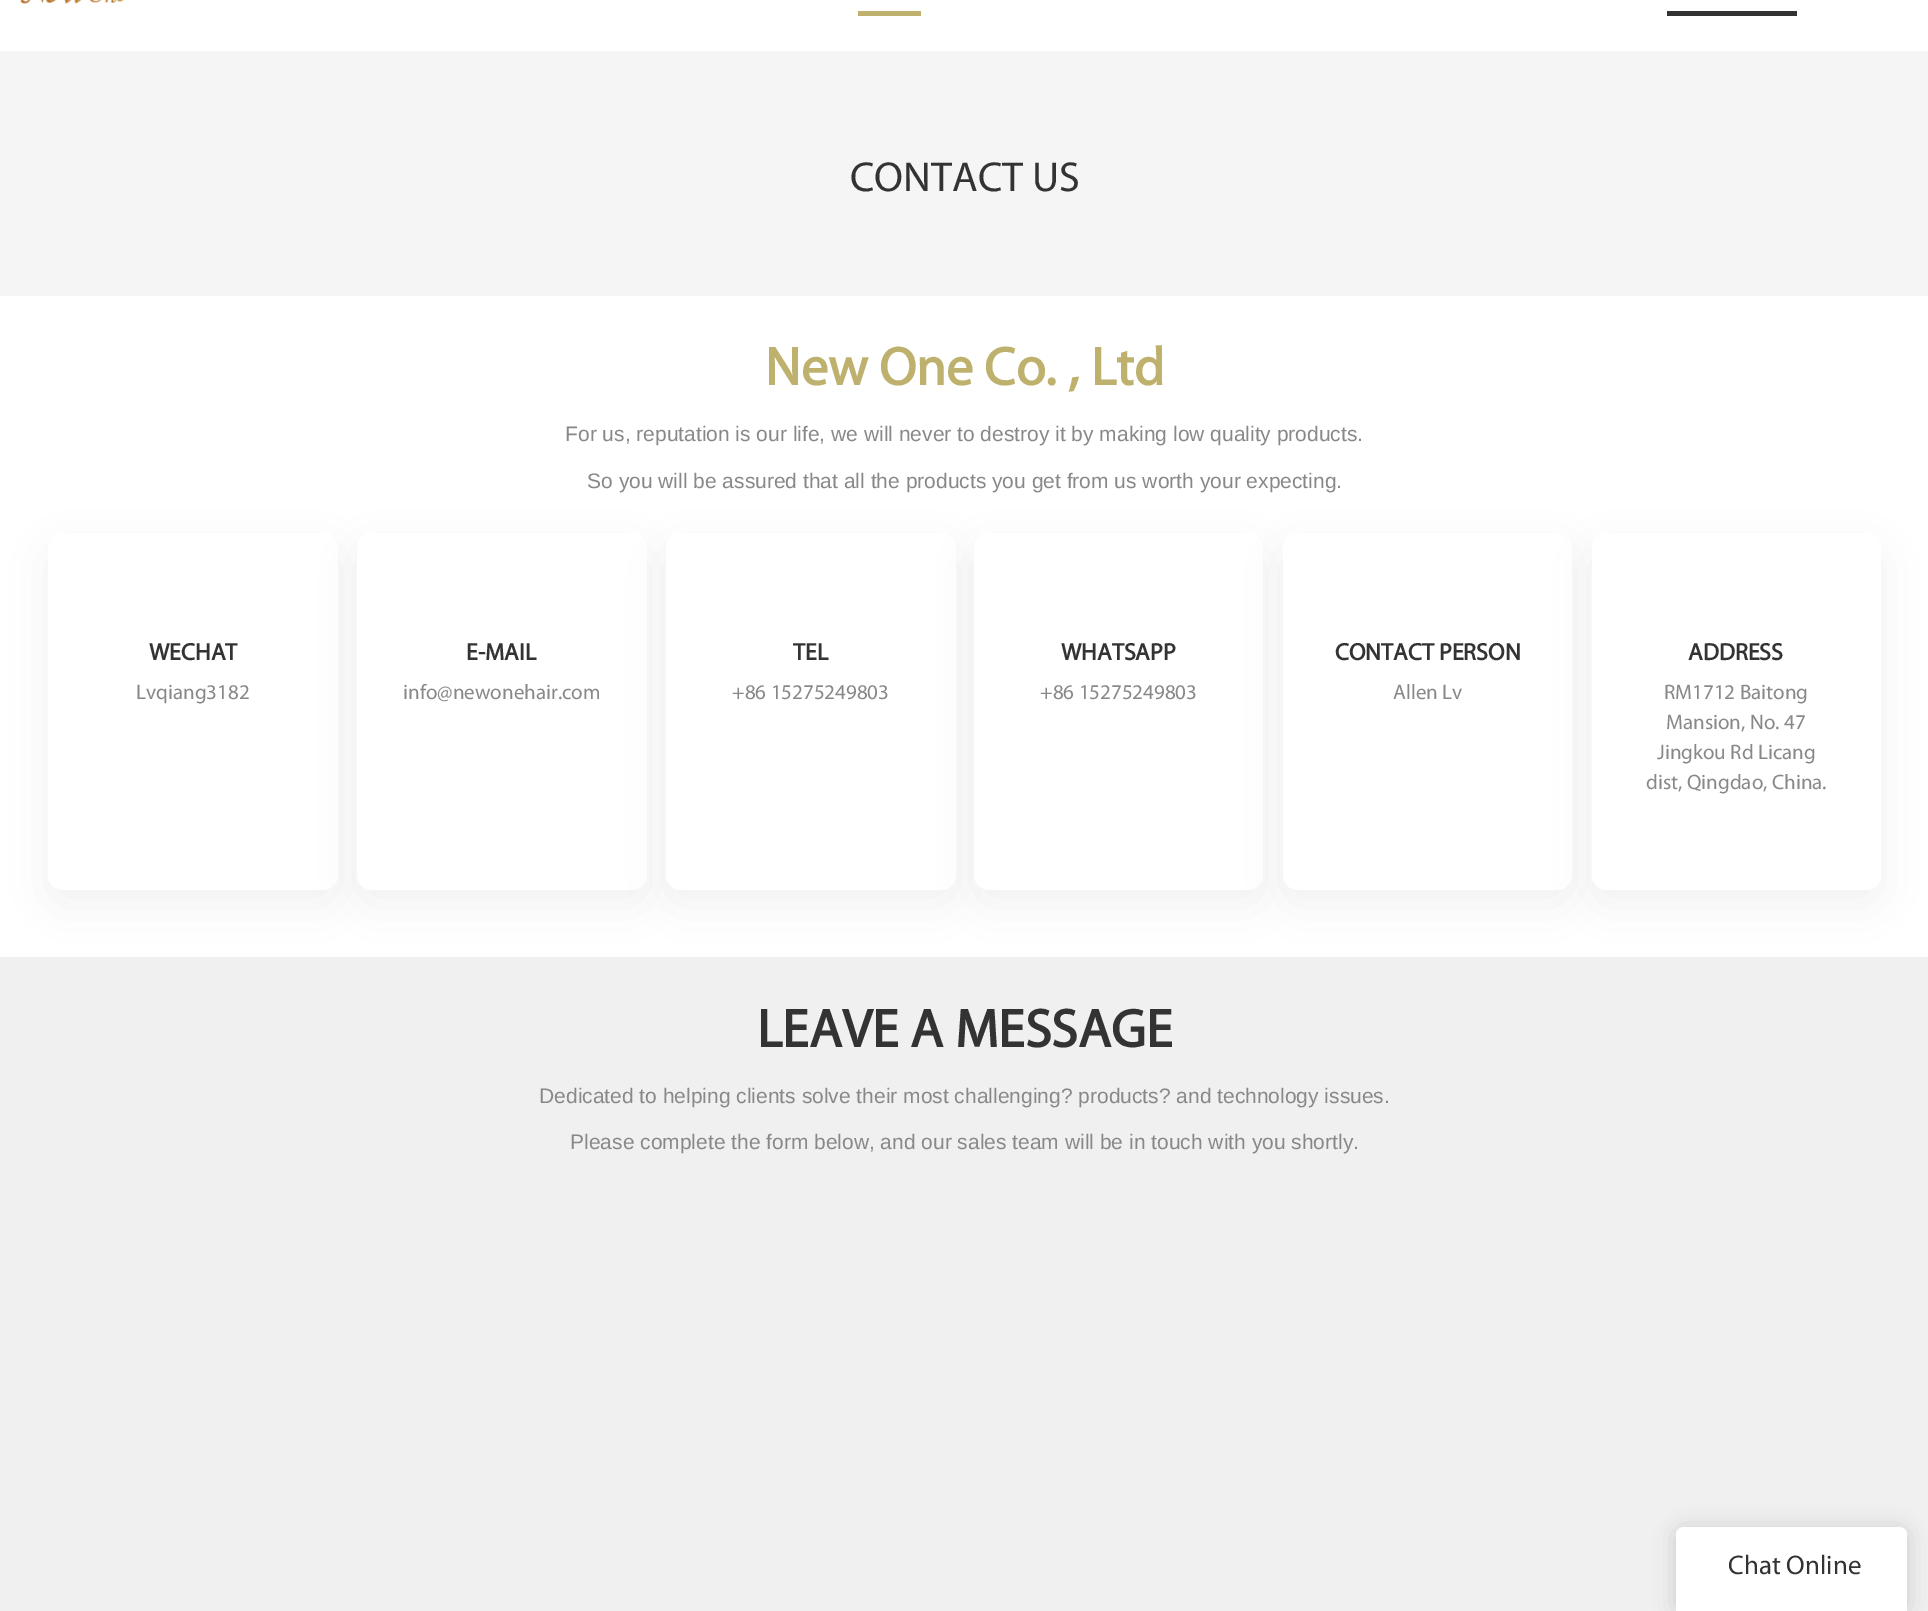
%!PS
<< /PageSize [1928 1611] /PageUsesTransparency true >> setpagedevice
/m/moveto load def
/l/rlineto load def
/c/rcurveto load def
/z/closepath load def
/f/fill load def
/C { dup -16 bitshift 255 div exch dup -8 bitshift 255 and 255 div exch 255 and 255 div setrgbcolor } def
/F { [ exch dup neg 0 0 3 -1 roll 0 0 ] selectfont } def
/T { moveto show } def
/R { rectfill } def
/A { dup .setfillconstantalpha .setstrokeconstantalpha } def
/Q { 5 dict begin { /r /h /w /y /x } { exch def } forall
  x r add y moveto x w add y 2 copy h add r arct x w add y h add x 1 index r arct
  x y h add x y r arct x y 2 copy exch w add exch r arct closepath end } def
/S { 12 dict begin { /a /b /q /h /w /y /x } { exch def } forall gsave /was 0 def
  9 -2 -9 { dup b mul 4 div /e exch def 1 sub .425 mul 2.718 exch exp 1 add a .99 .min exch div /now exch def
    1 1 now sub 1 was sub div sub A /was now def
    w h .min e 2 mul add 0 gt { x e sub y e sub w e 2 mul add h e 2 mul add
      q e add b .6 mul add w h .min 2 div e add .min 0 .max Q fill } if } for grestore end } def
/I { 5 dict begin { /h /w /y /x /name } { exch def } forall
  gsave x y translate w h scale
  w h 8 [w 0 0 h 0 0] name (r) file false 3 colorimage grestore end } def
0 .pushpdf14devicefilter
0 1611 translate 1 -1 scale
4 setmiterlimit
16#FFFFFF C
0 0 1928 1611 R
(1.rgb) 20 0 104 6 I
16#BEB16D C
858 11 63 5 R
16#333333 C
1667 11 130 5 R
16#F5F5F5 C
0 51 1928 245 R
/Myriad-Regular 42 F
16#333333 C
(CONTACT US) 850 191 T
/Myriad-Bold 54 F
16#BEB16D C
(New One Co. , Ltd) 765 385 T
/LiberationSans-Regular 21 F
16#888888 C
(For us, reputation is our life, we will never to destroy it by making low quality products.) 565 441 T
(So you will be assured that all the products you get from us worth your expecting.) 587 488 T
16#F0F0F0 C
0 957 1928 654 R
16#000000 C
48 548 290 357 15 22.5 .05 S
16#FFFFFF C
48 533 290 357 15 Q f
/Myriad-Bold 24 F
16#333333 C
(WECHAT) 149 660 T
/Myriad-Regular 21 F
16#888888 C
(Lvqiang3182) 136 699 T
16#000000 C
357 548 290 357 15 22.5 .05 S
16#FFFFFF C
357 533 290 357 15 Q f
/Myriad-Bold 24 F
16#333333 C
(E-MAIL) 466 660 T
/Myriad-Regular 21 F
16#888888 C
(info@newonehair.com) 403 699 T
16#000000 C
666 548 290 357 15 22.5 .05 S
16#FFFFFF C
666 533 290 357 15 Q f
/Myriad-Bold 24 F
16#333333 C
(TEL) 793 660 T
/Myriad-Regular 21 F
16#888888 C
(+86 15275249803) 732 699 T
16#000000 C
974 548 289 357 15 22.5 .05 S
16#FFFFFF C
974 533 289 357 15 Q f
/Myriad-Bold 24 F
16#333333 C
(WHATSAPP) 1061 660 T
/Myriad-Regular 21 F
16#888888 C
(+86 15275249803) 1040 699 T
16#000000 C
1283 548 289 357 15 22.5 .05 S
16#FFFFFF C
1283 533 289 357 15 Q f
/Myriad-Bold 24 F
16#333333 C
(CONTACT PERSON) 1335 660 T
/Myriad-Regular 21 F
16#888888 C
(Allen Lv) 1393 699 T
16#000000 C
1592 548 289 357 15 22.5 .05 S
16#FFFFFF C
1592 533 289 357 15 Q f
/Myriad-Bold 24 F
16#333333 C
(ADDRESS) 1688 660 T
/Myriad-Regular 21 F
16#888888 C
(RM1712 Baitong) 1664 699 T
(Mansion, No. 47) 1666 729 T
(Jingkou Rd Licang) 1657 759 T
(dist, Qingdao, China.) 1646 789 T
/Myriad-Bold 54 F
16#333333 C
(LEAVE A MESSAGE) 757 1047 T
/LiberationSans-Regular 21 F
16#888888 C
(Dedicated to helping clients solve their most challenging? products? and technology issues.) 539 1103 T
(Please complete the form below, and our sales team will be in touch with you shortly.) 570 1149 T
16#000000 C
1676 1529 231 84 8 11 .15 S
16#FFFFFF C
1684 1527 m 215 0 l 4.5 0 8 3.5 8 8 c 0 76 l -231 0 l 0 -76 l 0 -4.5 3.5 -8 8 -8 c z f
/Myriad-Regular 27 F
16#333333 C
(Chat Online) 1728 1574 T
.poppdf14devicefilter showpage
